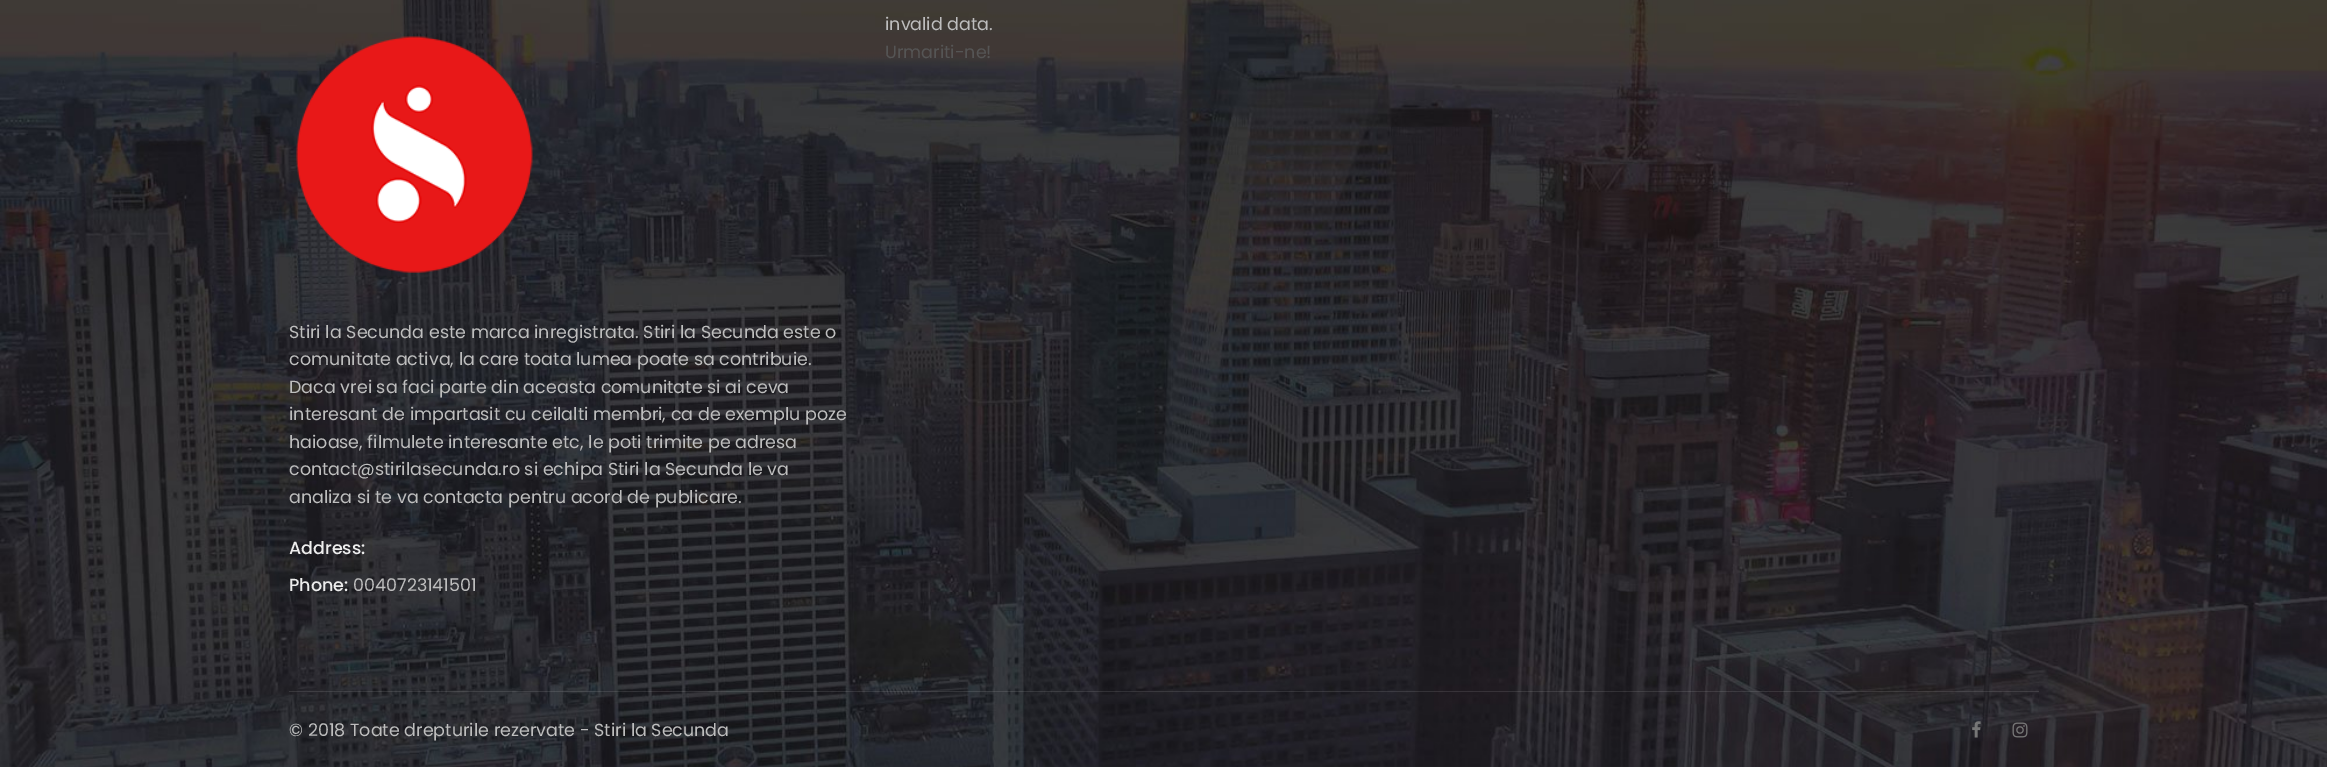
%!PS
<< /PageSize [2327 767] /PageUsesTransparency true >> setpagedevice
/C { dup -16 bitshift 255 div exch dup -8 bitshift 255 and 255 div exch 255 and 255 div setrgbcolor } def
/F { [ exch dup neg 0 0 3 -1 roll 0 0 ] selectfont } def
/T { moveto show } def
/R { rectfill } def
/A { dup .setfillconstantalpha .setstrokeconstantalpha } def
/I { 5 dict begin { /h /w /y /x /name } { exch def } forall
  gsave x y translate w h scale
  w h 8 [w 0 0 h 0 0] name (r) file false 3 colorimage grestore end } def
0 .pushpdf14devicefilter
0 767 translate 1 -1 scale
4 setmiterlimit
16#FFFFFF C
0 0 2327 767 R
(1.rgb) 0 0 2327 767 I
/Poppins-Regular 17.5 F
16#BEBEBE C
(invalid data.) 885 30 T
16#555555 C
(Urmariti-ne!) 885 58 T
(2.rgb) 296 36 237 237 I
16#BEBEBE C
(Stiri la Secunda este marca inregistrata. Stiri la Secunda este o) 289 338 T
(comunitate activa, la care toata lumea poate sa contribuie.) 289 365 T
(Daca vrei sa faci parte din aceasta comunitate si ai ceva) 289 393 T
(interesant de impartasit cu ceilalti membri, ca de exemplu poze) 289 420 T
(haioase, filmulete interesante etc, le poti trimite pe adresa) 289 448 T
(contact@stirilasecunda.ro si echipa Stiri la Secunda le va) 289 475 T
(analiza si te va contacta pentru acord de publicare.) 289 503 T
/Poppins-Medium 17.5 F
16#EDEDED C
(Address:) 289 554 T
(Phone:) 289 591 T
/Poppins-Regular 17.5 F
16#BEBEBE C
(0040723141501) 353 591 T
0.1 A
16#FFFFFF C
289 691 1750 1 R
1 A
16#BEBEBE C
(© 2018 Toate drepturile rezervate - Stiri la Secunda) 289 736 T
(3.rgb) 1972 721 9 17 I
(4.rgb) 2012 722 16 16 I
.poppdf14devicefilter showpage
